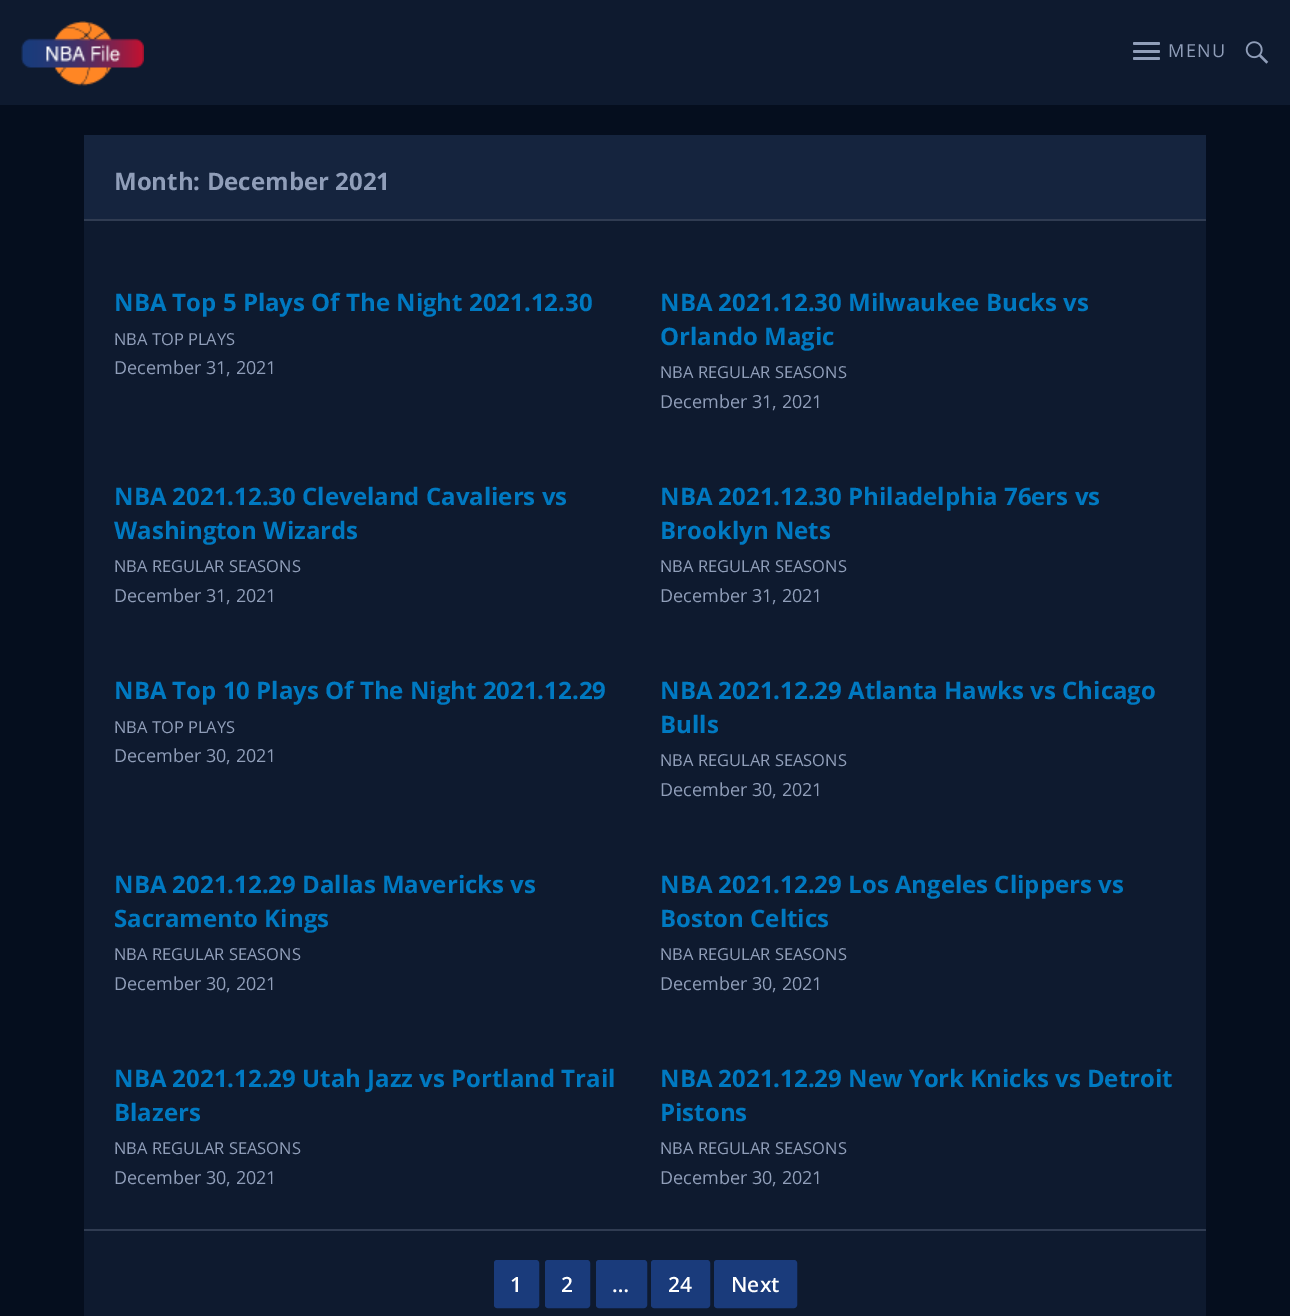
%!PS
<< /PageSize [1290 1316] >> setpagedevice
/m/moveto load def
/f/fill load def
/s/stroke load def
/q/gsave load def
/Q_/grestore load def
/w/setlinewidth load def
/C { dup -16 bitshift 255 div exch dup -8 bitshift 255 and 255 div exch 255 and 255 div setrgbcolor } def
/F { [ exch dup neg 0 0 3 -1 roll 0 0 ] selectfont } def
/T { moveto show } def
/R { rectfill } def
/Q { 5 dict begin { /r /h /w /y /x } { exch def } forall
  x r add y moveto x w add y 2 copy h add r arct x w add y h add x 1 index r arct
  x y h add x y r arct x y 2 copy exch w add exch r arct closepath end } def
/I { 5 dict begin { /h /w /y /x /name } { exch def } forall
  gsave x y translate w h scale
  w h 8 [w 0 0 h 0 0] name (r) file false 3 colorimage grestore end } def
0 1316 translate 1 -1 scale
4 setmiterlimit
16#050E1E C
0 0 1290 1316 R
16#0E1A2F C
0 0 1290 105 R
(1.rgb) 21 21 123 65 I
16#909EB9 C
1133 42 27 3 1.5 Q f
1133 50 27 3 1.5 Q f
1133 57 27 3 1.5 Q f
/OpenSans-Regular 18 F
1168 57 m 1.5 0 (MENU) ashow
(2.rgb) 1245 41 24 23 I
16#15243E C
84 135 1122 84 R
16#0E1A2F C
84 221 1122 1095 R
16#303C52 C
84 219 1122 2 R
/OpenSans-Bold 24 F
16#909EB9 C
(Month: December 2021) 114 190 T
16#0079C1 C
(NBA Top 5 Plays Of The Night 2021.12.30) 114 311 T
/OpenSans-Regular 16.5 F
16#909EB9 C
(NBA TOP PLAYS) 114 345 T
/OpenSans-Regular 18 F
(December 31, 2021) 114 374 T
/OpenSans-Bold 24 F
16#0079C1 C
(NBA 2021.12.30 Milwaukee Bucks vs) 660 311 T
(Orlando Magic) 660 345 T
/OpenSans-Regular 16.5 F
16#909EB9 C
(NBA REGULAR SEASONS) 660 378 T
/OpenSans-Regular 18 F
(December 31, 2021) 660 408 T
/OpenSans-Bold 24 F
16#0079C1 C
(NBA 2021.12.30 Cleveland Cavaliers vs) 114 505 T
(Washington Wizards) 114 539 T
/OpenSans-Regular 16.5 F
16#909EB9 C
(NBA REGULAR SEASONS) 114 572 T
/OpenSans-Regular 18 F
(December 31, 2021) 114 602 T
/OpenSans-Bold 24 F
16#0079C1 C
(NBA 2021.12.30 Philadelphia 76ers vs) 660 505 T
(Brooklyn Nets) 660 539 T
/OpenSans-Regular 16.5 F
16#909EB9 C
(NBA REGULAR SEASONS) 660 572 T
/OpenSans-Regular 18 F
(December 31, 2021) 660 602 T
/OpenSans-Bold 24 F
16#0079C1 C
(NBA Top 10 Plays Of The Night 2021.12.29) 114 699 T
/OpenSans-Regular 16.5 F
16#909EB9 C
(NBA TOP PLAYS) 114 733 T
/OpenSans-Regular 18 F
(December 30, 2021) 114 762 T
/OpenSans-Bold 24 F
16#0079C1 C
(NBA 2021.12.29 Atlanta Hawks vs Chicago) 660 699 T
(Bulls) 660 733 T
/OpenSans-Regular 16.5 F
16#909EB9 C
(NBA REGULAR SEASONS) 660 766 T
/OpenSans-Regular 18 F
(December 30, 2021) 660 796 T
/OpenSans-Bold 24 F
16#0079C1 C
(NBA 2021.12.29 Dallas Mavericks vs) 114 893 T
(Sacramento Kings) 114 927 T
/OpenSans-Regular 16.5 F
16#909EB9 C
(NBA REGULAR SEASONS) 114 960 T
/OpenSans-Regular 18 F
(December 30, 2021) 114 990 T
/OpenSans-Bold 24 F
16#0079C1 C
(NBA 2021.12.29 Los Angeles Clippers vs) 660 893 T
(Boston Celtics) 660 927 T
/OpenSans-Regular 16.5 F
16#909EB9 C
(NBA REGULAR SEASONS) 660 960 T
/OpenSans-Regular 18 F
(December 30, 2021) 660 990 T
/OpenSans-Bold 24 F
16#0079C1 C
(NBA 2021.12.29 Utah Jazz vs Portland Trail) 114 1087 T
(Blazers) 114 1121 T
/OpenSans-Regular 16.5 F
16#909EB9 C
(NBA REGULAR SEASONS) 114 1154 T
/OpenSans-Regular 18 F
(December 30, 2021) 114 1184 T
/OpenSans-Bold 24 F
16#0079C1 C
(NBA 2021.12.29 New York Knicks vs Detroit) 660 1087 T
(Pistons) 660 1121 T
/OpenSans-Regular 16.5 F
16#909EB9 C
(NBA REGULAR SEASONS) 660 1154 T
/OpenSans-Regular 18 F
(December 30, 2021) 660 1184 T
16#303C52 C
84 1229 1122 2 R
16#1A3B7B C
495 1261 43 46 2 Q q f Q_
2 w
s
/OpenSans-SemiBold 21 F
16#FFFFFF C
(1) 510 1292 T
16#1A3B7B C
546 1261 43 46 2 Q q f Q_
s
16#FFFFFF C
(2) 561 1292 T
16#1A3B7B C
597 1261 49 46 2 Q q f Q_
s
16#FFFFFF C
(…) 612 1292 T
16#1A3B7B C
652 1261 57 46 2 Q q f Q_
s
16#FFFFFF C
(24) 668 1292 T
16#1A3B7B C
715 1261 81 46 2 Q q f Q_
s
16#FFFFFF C
(Next) 731 1292 T
showpage
